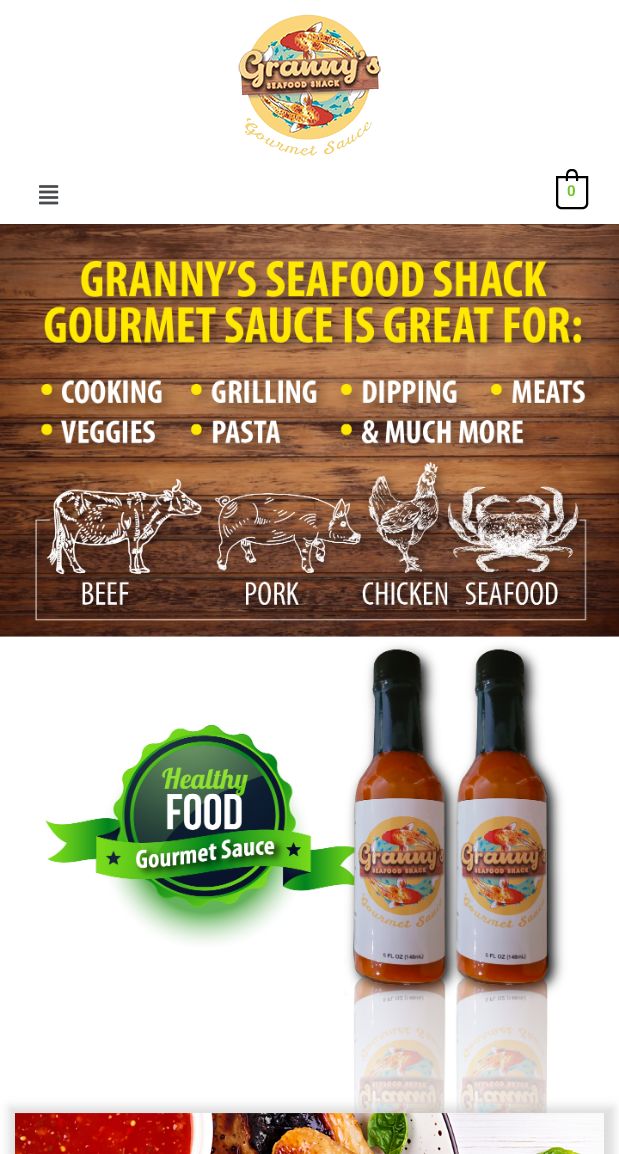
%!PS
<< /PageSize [619 1154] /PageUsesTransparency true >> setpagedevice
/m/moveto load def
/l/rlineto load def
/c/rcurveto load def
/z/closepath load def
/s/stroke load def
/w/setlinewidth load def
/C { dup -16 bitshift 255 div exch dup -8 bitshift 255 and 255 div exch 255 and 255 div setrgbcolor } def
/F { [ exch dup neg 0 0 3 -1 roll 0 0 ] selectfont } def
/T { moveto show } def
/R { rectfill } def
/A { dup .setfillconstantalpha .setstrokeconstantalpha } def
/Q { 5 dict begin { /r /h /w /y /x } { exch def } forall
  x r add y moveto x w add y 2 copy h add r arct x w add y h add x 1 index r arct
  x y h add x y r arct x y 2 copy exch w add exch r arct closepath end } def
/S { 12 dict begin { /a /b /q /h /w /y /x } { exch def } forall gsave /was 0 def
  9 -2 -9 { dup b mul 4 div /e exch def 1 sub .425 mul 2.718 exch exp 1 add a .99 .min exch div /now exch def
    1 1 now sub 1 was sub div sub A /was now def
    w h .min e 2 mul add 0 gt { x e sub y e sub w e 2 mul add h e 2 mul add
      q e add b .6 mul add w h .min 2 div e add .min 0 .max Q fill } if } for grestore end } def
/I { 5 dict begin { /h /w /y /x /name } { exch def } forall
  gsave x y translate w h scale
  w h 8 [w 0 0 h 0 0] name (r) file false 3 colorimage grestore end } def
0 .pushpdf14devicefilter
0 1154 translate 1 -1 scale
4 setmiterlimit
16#FFFFFF C
0 0 619 1154 R
(1.rgb) 238 14 143 142 I
(2.rgb) 39 185 20 20 I
16#000000 C
2 w
557 177 m 30 0 l 0 27 l 0 2 -2 4 -4 4 c -22 0 l -2 0 -4 -2 -4 -4 c z s
572 169 m 6.5 0 6 7.5 6 12 c -12 0 l 0 -4.5 -1 -12 6 -12 c z 572 171 m 5 0 4 6.5 4 10 c -8 0 l 0 -3.5 -1.5 -10 4 -10 c z eofill
/Roboto-Bold 15 F
16#75C32C C
(0) 567 196 T
(3.rgb) 0 224 619 930 I
16#000000 C
9 1107 605 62 0 5 .14 S
(4.rgb) 15 1113 589 41 I
.poppdf14devicefilter showpage
